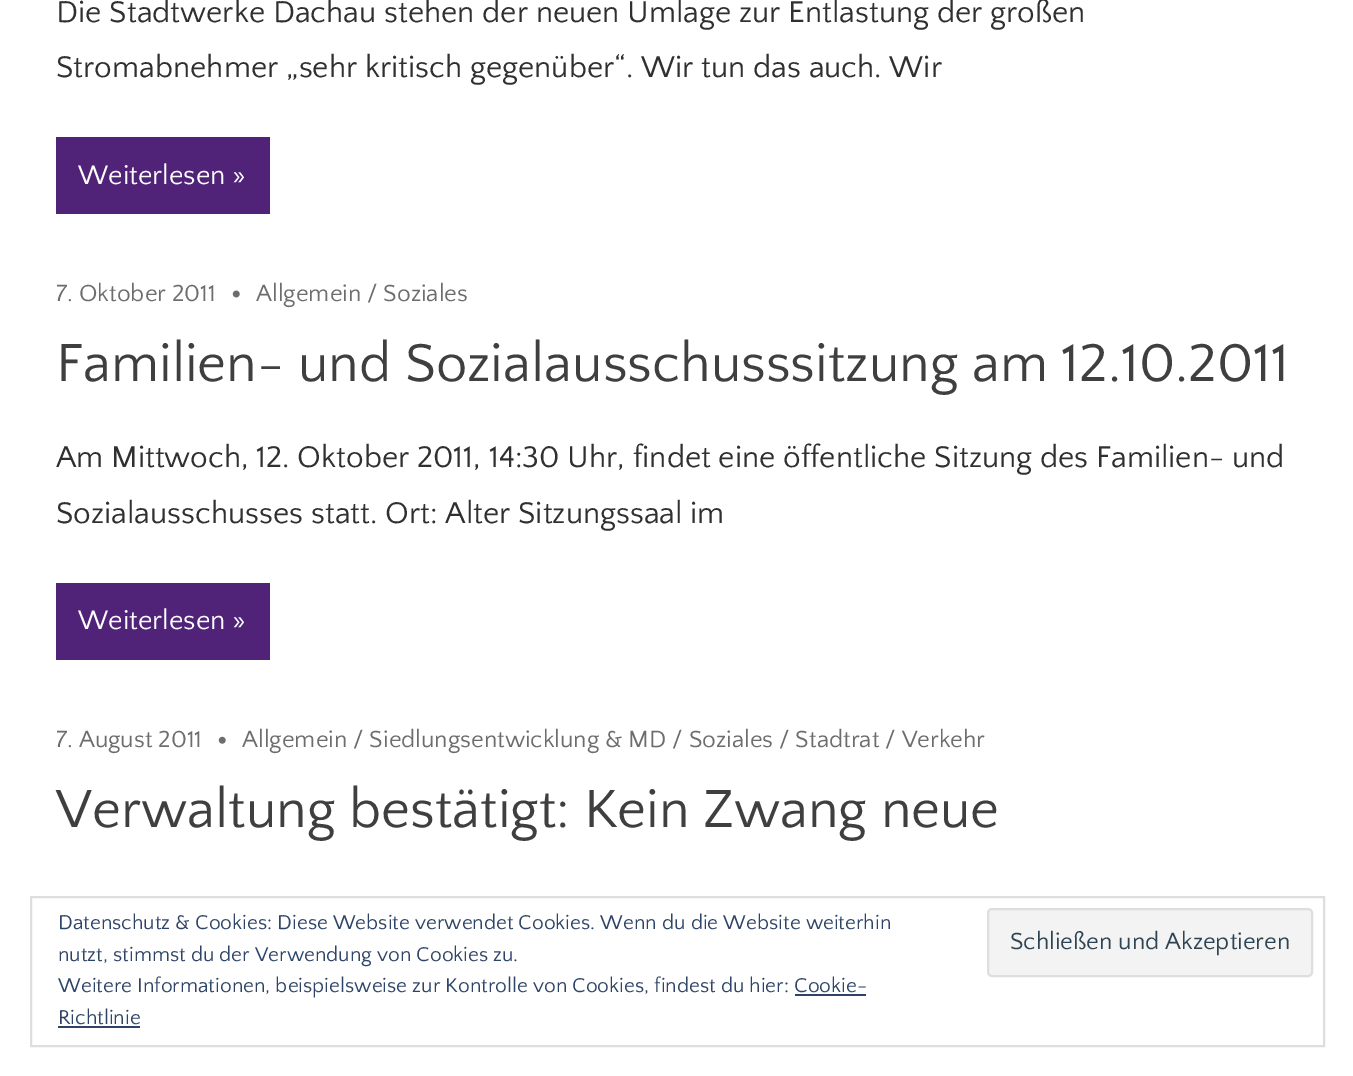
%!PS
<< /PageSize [1353 1076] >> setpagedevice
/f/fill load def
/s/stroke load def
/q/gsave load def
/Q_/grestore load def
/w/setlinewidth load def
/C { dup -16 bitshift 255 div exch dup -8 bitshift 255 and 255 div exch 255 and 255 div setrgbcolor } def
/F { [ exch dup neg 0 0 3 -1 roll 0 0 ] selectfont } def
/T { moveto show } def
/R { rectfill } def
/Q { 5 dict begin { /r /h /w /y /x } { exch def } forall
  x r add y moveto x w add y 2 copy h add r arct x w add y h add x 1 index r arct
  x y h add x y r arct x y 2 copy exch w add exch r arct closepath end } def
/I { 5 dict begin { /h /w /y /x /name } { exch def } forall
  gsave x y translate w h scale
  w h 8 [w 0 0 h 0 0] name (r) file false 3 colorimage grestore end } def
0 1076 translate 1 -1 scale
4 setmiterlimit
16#FFFFFF C
0 0 1353 1076 R
/QuattrocentoSans-Regular 31.5 F
16#303030 C
(Die Stadtwerke Dachau stehen der neuen Umlage zur Entlastung der großen) 56 22 T
(Stromabnehmer „sehr kritisch gegenüber“. Wir tun das auch. Wir) 56 77 T
16#502379 C
56 137 214 77 R
/QuattrocentoSans-Regular 28 F
16#FFFFFF C
(Weiterlesen ») 78 184 T
/QuattrocentoSans-Regular 24.5 F
16#6D6D6D C
(7. Oktober 2011) 56 301 T
(1.rgb) 232 290 8 8 I
(Allgemein / Soziales) 256 301 T
/QuattrocentoSans-Regular 56 F
16#3F3F3F C
(Familien- und Sozialausschusssitzung am 12.10.2011) 56 381 T
/QuattrocentoSans-Regular 31.5 F
16#303030 C
(Am Mittwoch, 12. Oktober 2011, 14:30 Uhr, findet eine öffentliche Sitzung des Familien- und) 56 467 T
(Sozialausschusses statt. Ort: Alter Sitzungssaal im) 56 523 T
16#502379 C
56 583 214 77 R
/QuattrocentoSans-Regular 28 F
16#FFFFFF C
(Weiterlesen ») 78 629 T
/QuattrocentoSans-Regular 24.5 F
16#6D6D6D C
(7. August 2011) 56 747 T
(2.rgb) 218 736 8 8 I
(Allgemein / Siedlungsentwicklung & MD / Soziales / Stadtrat / Verkehr) 242 747 T
/QuattrocentoSans-Regular 56 F
16#3F3F3F C
(Verwaltung bestätigt: Kein Zwang neue) 56 827 T
16#DEDEDE C
2 w
31 897 1293 149 rectstroke
/QuattrocentoSans-Regular 21 F
16#2E4467 C
(Datenschutz & Cookies: Diese Website verwendet Cookies. Wenn du die Website weiterhin) 58 929 T
(nutzt, stimmst du der Verwendung von Cookies zu.) 58 961 T
16#F3F3F3 C
988 909 324 67 4 Q q f Q_
16#DEDEDE C
s
/QuattrocentoSans-Regular 24.5 F
16#2E4453 C
(Schließen und Akzeptieren) 1010 949 T
/QuattrocentoSans-Regular 21 F
16#2E4467 C
(Weitere Informationen, beispielsweise zur Kontrolle von Cookies, findest du hier: Cookie-) 58 992 T
(Richtlinie) 58 1024 T
795 994 71 2 R
58 1026 82 2 R
showpage
